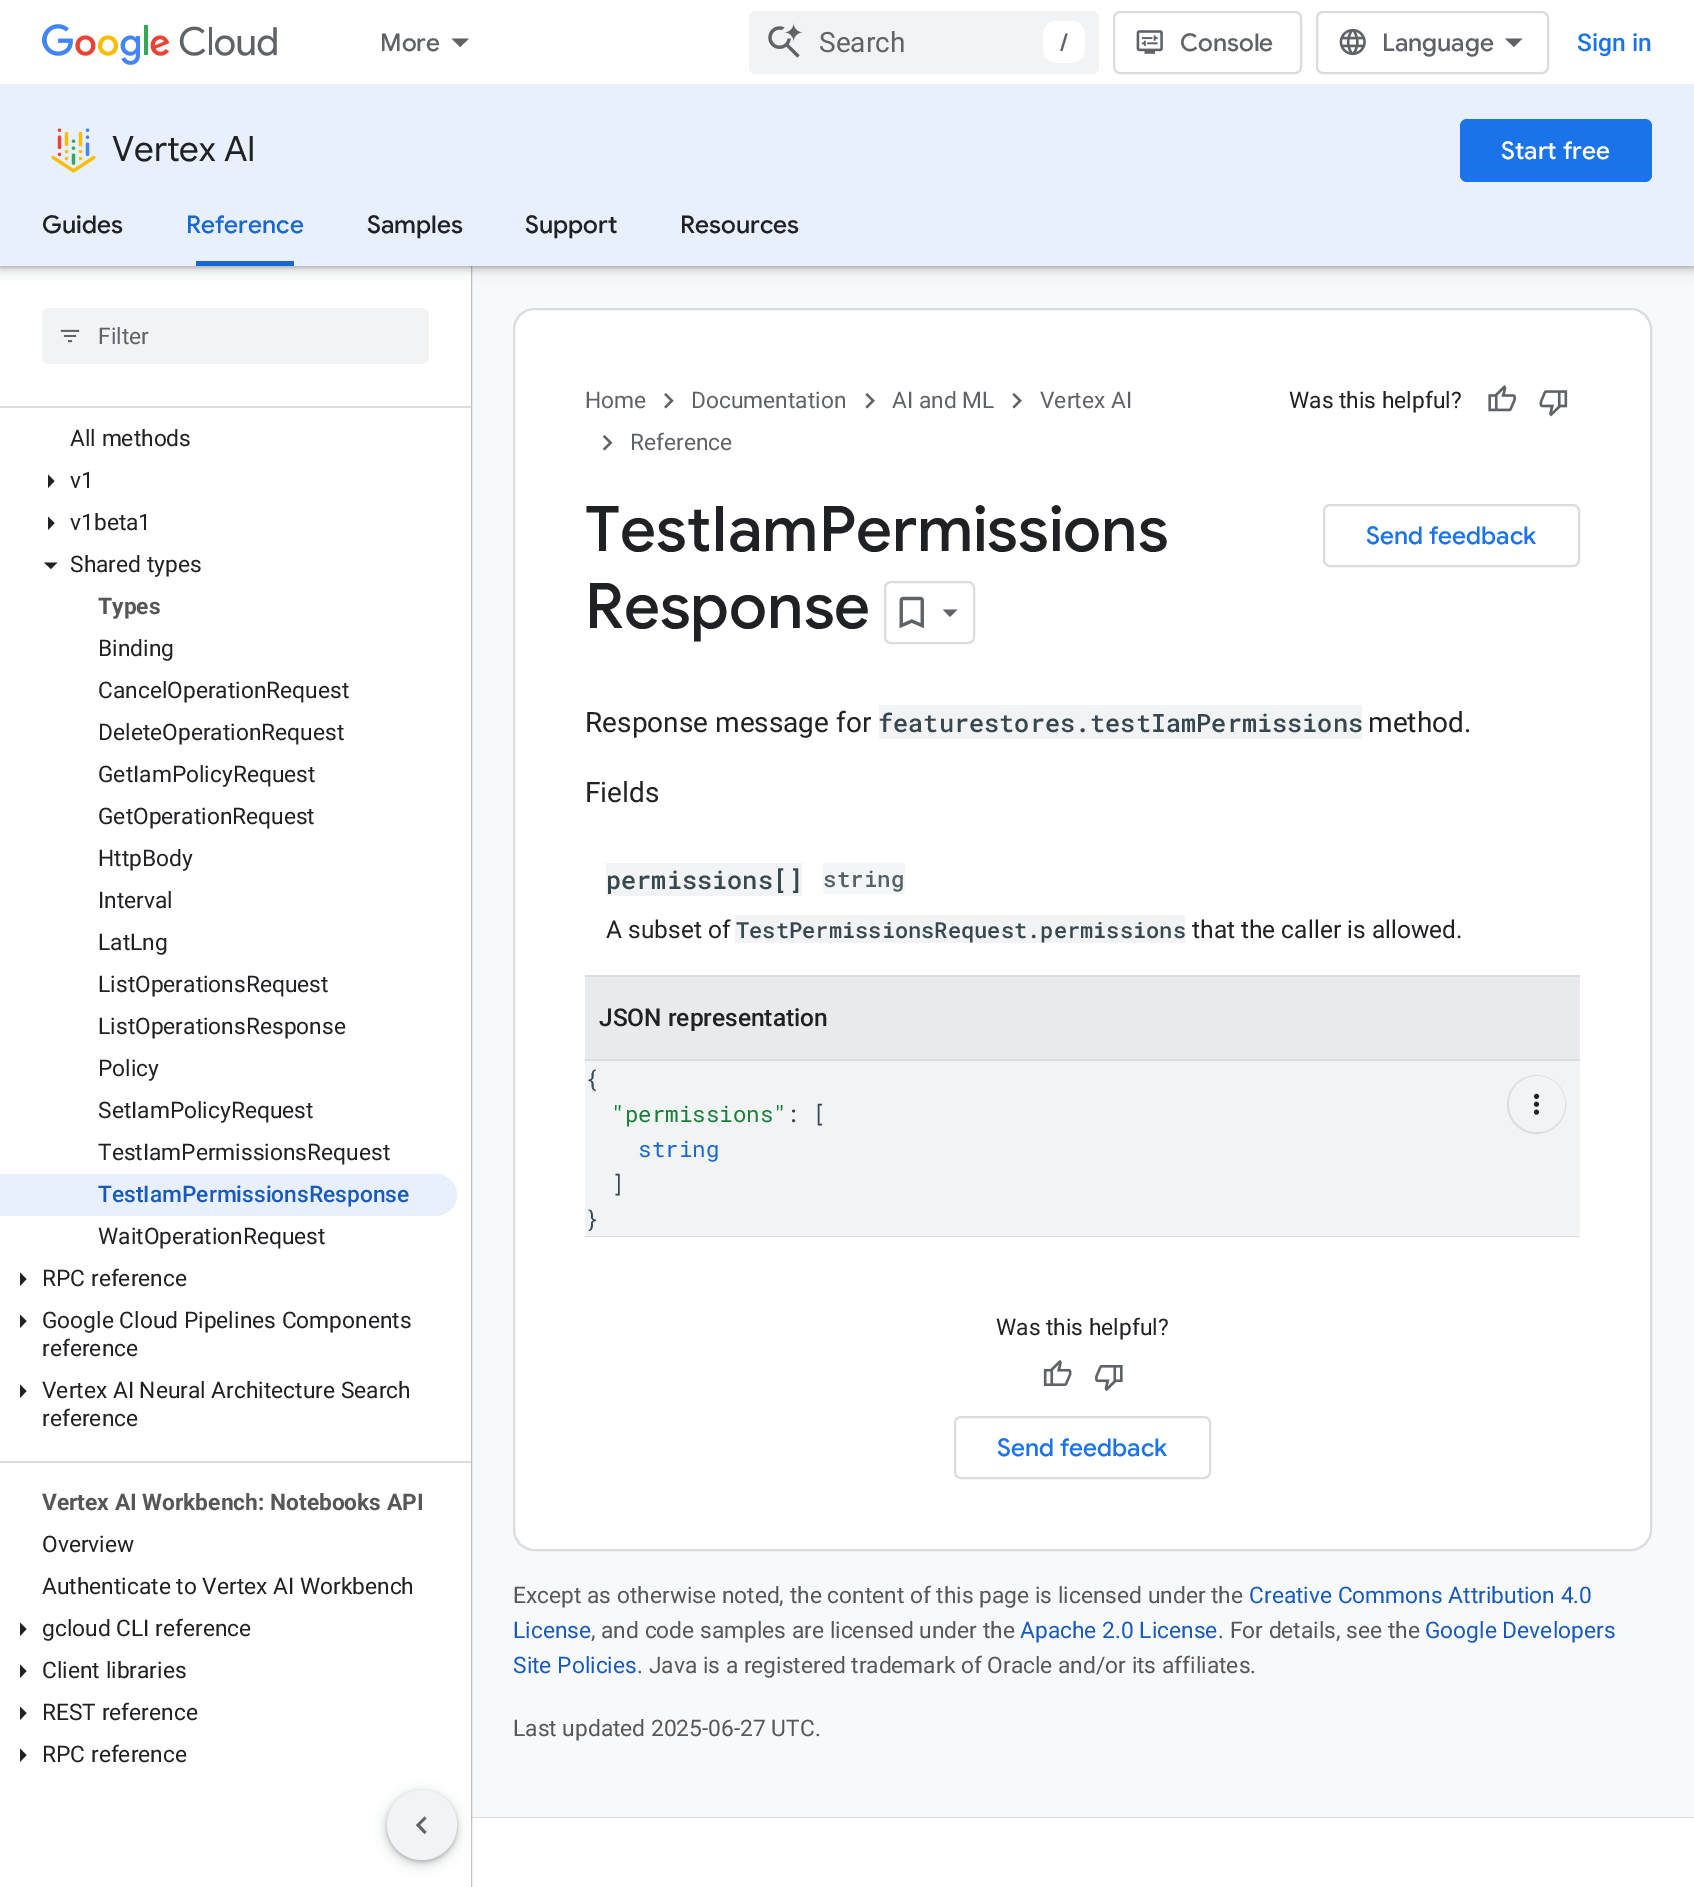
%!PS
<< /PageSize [1694 1887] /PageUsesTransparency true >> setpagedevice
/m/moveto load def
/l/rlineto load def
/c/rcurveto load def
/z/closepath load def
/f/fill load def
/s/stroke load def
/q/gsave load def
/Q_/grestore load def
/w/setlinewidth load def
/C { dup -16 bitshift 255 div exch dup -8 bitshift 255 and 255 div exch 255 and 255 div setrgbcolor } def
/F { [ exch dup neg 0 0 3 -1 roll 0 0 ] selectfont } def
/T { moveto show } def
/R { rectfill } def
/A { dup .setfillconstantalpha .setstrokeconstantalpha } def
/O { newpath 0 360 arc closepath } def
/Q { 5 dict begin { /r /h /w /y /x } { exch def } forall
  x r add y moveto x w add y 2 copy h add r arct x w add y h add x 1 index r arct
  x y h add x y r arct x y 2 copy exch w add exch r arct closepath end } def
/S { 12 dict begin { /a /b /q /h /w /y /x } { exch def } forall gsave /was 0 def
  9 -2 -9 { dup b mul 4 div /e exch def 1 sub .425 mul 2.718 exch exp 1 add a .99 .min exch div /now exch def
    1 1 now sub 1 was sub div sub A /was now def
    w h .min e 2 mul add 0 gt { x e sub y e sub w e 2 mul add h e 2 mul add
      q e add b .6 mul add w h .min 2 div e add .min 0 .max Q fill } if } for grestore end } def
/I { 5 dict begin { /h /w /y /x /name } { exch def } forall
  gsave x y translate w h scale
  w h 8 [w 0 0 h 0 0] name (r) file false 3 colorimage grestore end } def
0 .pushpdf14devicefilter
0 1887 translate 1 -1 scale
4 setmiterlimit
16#F8F9FA C
0 0 1694 1887 R
16#DADCE0 C
471 1817 1223 1 R
16#FFFFFF C
471 1818 1223 69 R
16#3C4043 C
0 2 471 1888 0 1 1 S
16#FFFFFF C
0 408 471 1479 R
0 266 471 140 R
16#3C4043 C
-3 84 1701 189 0 5 .15 S
0 86 1694 182 0 2 .3 S
16#FFFFFF C
0 0 1694 84 R
(1.rgb) 42 24 235 41 I
/GoogleSans-Medium 24.5 F
16#5F6368 C
(More) 380 51 T
451.5 38.5 m 17.5 0 l -9 8.5 l z f
16#F1F3F4 C
749 11 350 63 7 Q f
(2.rgb) 768 23 35 35 I
/Roboto-Regular 28 F
16#5F6368 C
(Search) 819 52 T
16#FFFFFF C
1043 21 42 42 14 Q f
/GoogleSans-Medium 24.5 F
16#5F6368 C
(/) 1060 51 T
16#DADCE0 C
2 w
1114 12 187 61 6 Q s
(3.rgb) 1136 30 27 24 I
16#5F6368 C
(Console) 1180 51 T
16#DADCE0 C
1317 12 231 61 6 Q s
(4.rgb) 1339 28 27 28 I
16#5F6368 C
(Language) 1382 51 T
1514 47 m -9 -8.5 l 17.5 0 l z f
/Roboto-Medium 24.5 F
16#1A73E8 C
(Sign in) 1577 51 T
16#E8F0FE C
0 84 1694 182 R
(5.rgb) 51 128 45 45 I
/GoogleSans-Regular 35 F
16#202124 C
(Vertex AI) 112 161 T
16#1A73E8 C
1460 119 192 63 7 Q f
/GoogleSans-Medium 24.5 F
16#FFFFFF C
(Start free) 1501 159 T
16#202124 C
(Guides) 42 233 T
16#1967D2 C
(Reference) 186 233 T
196 261 98 5 R
16#202124 C
(Samples) 367 233 T
(Support) 525 233 T
(Resources) 680 233 T
16#DADCE0 C
0 406 471 2 R
16#F1F3F4 C
42 308 387 56 7 Q f
(6.rgb) 60 329 20 14 I
/Roboto-Regular 22.75 F
16#5F6368 C
(Filter) 98 344 T
16#202124 C
(All methods) 70 446 T
48 488 m 0 -13.5 l 6.5 6.5 l z f
(v1) 70 488 T
48 530 m 0 -13.5 l 6.5 6.5 l z f
(v1beta1) 70 530 T
44 562.5 m 13.5 0 l -6.5 6.5 l z f
(Shared types) 70 572 T
/Roboto-Bold 22.75 F
16#575758 C
(Types) 98 614 T
/Roboto-Regular 22.75 F
16#202124 C
(Binding) 98 656 T
(CancelOperationRequest) 98 698 T
(DeleteOperationRequest) 98 740 T
(GetIamPolicyRequest) 98 782 T
(GetOperationRequest) 98 824 T
(HttpBody) 98 866 T
(Interval) 98 908 T
(LatLng) 98 950 T
(ListOperationsRequest) 98 992 T
(ListOperationsResponse) 98 1034 T
(Policy) 98 1076 T
(SetIamPolicyRequest) 98 1118 T
(TestIamPermissionsRequest) 98 1160 T
16#E8F0FE C
0 1174 m 436 0 l 11.5 0 21 9.5 21 21 c 0 11.5 -9.5 21 -21 21 c -436 0 l z f
/Roboto-Medium 22.75 F
16#185ABC C
(TestIamPermissionsResponse) 98 1202 T
/Roboto-Regular 22.75 F
16#202124 C
(WaitOperationRequest) 98 1244 T
20 1286 m 0 -13.5 l 6.5 6.5 l z f
(RPC reference) 42 1286 T
20 1328 m 0 -13.5 l 6.5 6.5 l z f
(Google Cloud Pipelines Components) 42 1328 T
(reference) 42 1356 T
20 1398 m 0 -13.5 l 6.5 6.5 l z f
(Vertex AI Neural Architecture Search) 42 1398 T
(reference) 42 1426 T
16#DADCE0 C
0 1461 471 2 R
/Roboto-Bold 22.75 F
16#575758 C
(Vertex AI Workbench: Notebooks API) 42 1510 T
/Roboto-Regular 22.75 F
16#202124 C
(Overview) 42 1552 T
(Authenticate to Vertex AI Workbench) 42 1594 T
20 1636 m 0 -13.5 l 6.5 6.5 l z f
(gcloud CLI reference) 42 1636 T
20 1678 m 0 -13.5 l 6.5 6.5 l z f
(Client libraries) 42 1678 T
20 1720 m 0 -13.5 l 6.5 6.5 l z f
(REST reference) 42 1720 T
20 1762 m 0 -13.5 l 6.5 6.5 l z f
(RPC reference) 42 1762 T
16#FFFFFF C
514 309 1137 1241 20 Q q f Q_
16#DADCE0 C
s
16#5F6368 C
(Home) 585 408 T
(7.rgb) 664 393 10 16 I
(Documentation) 691 408 T
(8.rgb) 865 393 10 16 I
(AI and ML) 892 408 T
(8.rgb) 1012 393 10 16 I
(Vertex AI) 1040 408 T
(9.rgb) 602 435 11 16 I
(Reference) 630 450 T
16#202124 C
(Was this helpful?) 1289 408 T
(10.rgb) 1488 385 28 27 I
(11.rgb) 1539 390 29 27 I
/GoogleSans-Medium 63 F
(TestIamPermissions) 585 551 T
(Response) 585 628 T
16#DADCE0 C
885 582 89 61 6 Q s
(12.rgb) 899 596 25 33 I
16#5F6368 C
943 609.5 m 14.5 0 l -7.5 7.5 l z f
16#DADCE0 C
1324 505 255 61 6 Q s
/GoogleSans-Medium 24.5 F
16#1A73E8 C
(Send feedback) 1366 544 T
/Roboto-Regular 28 F
16#202124 C
(Response message for) 585 732 T
16#F1F3F4 C
879 705 483 34 R
/RobotoMono-Medium 25.25 F
16#37474F C
(featurestores.testIamPermissions) 878 732 T
/Roboto-Regular 28 F
16#202124 C
(method.) 1368 732 T
(Fields) 585 802 T
16#F1F3F4 C
606 863 196 33 R
/RobotoMono-Medium 25.25 F
16#37474F C
(permissions[]) 606 889 T
16#F3F5F6 C
823 863 82 31 R
/RobotoMono-Medium 22.5 F
16#556369 C
(string) 823 887 T
/Roboto-Regular 24.5 F
16#202124 C
(A subset of) 606 938 T
16#F1F3F4 C
735 915 450 28 R
/RobotoMono-Medium 22.05 F
16#37474F C
(TestPermissionsRequest.permissions) 736 938 T
/Roboto-Regular 24.5 F
16#202124 C
(that the caller is allowed.) 1192 938 T
16#DADCE0 C
585 975 995 2 R
16#E8EAED C
585 977 995 82 R
/Roboto-Medium 24.5 F
16#202124 C
(JSON representation) 599 1026 T
16#DADCE0 C
585 1059 995 2 R
585 1236 995 1 R
16#F1F3F4 C
585 1061 995 175 R
/RobotoMono-Regular 22.5 F
16#37474F C
({) 585 1087 T
16#188038 C
("permissions") 611 1122 T
16#37474F C
(: [) 786 1122 T
16#1967D2 C
(string) 638 1157 T
16#37474F C
(]) 611 1192 T
(}) 585 1227 T
16#DADCE0 C
1536.5 1104.5 28.5 O s
16#F1F3F4 C
1537 1104 28 O f
(13.rgb) 1533 1093 7 22 I
/Roboto-Regular 22.75 F
16#202124 C
(Was this helpful?) 996 1335 T
(14.rgb) 1043 1360 29 26 I
(15.rgb) 1095 1365 28 26 I
16#DADCE0 C
955 1417 255 61 6 Q s
/GoogleSans-Medium 24.5 F
16#1A73E8 C
(Send feedback) 997 1456 T
/Roboto-Regular 22.75 F
16#575758 C
(Except as otherwise noted, the content of this page is licensed under the) 513 1603 T
16#185ABC C
(Creative Commons Attribution 4.0) 1249 1603 T
(License) 513 1638 T
16#575758 C
(, and code samples are licensed under the) 591 1638 T
16#185ABC C
(Apache 2.0 License) 1020 1638 T
16#575758 C
(. For details, see the) 1218 1638 T
16#185ABC C
(Google Developers) 1425 1638 T
(Site Policies) 513 1673 T
16#575758 C
(. Java is a registered trademark of Oracle and/or its affiliates.) 637 1673 T
(Last updated 2025-06-27 UTC.) 513 1736 T
16#3C4043 C
383 1790 77 77 38.5 5 .15 S
387 1792 70 70 35 2 .3 S
16#F1F3F4 C
422 1825 35 O f
16#5F6368 C
426.5 1818.5 m -6.5 6.5 l 6.5 7 l -2 2 l -8.5 -9 l 8.5 -8.5 l z f
.poppdf14devicefilter showpage
